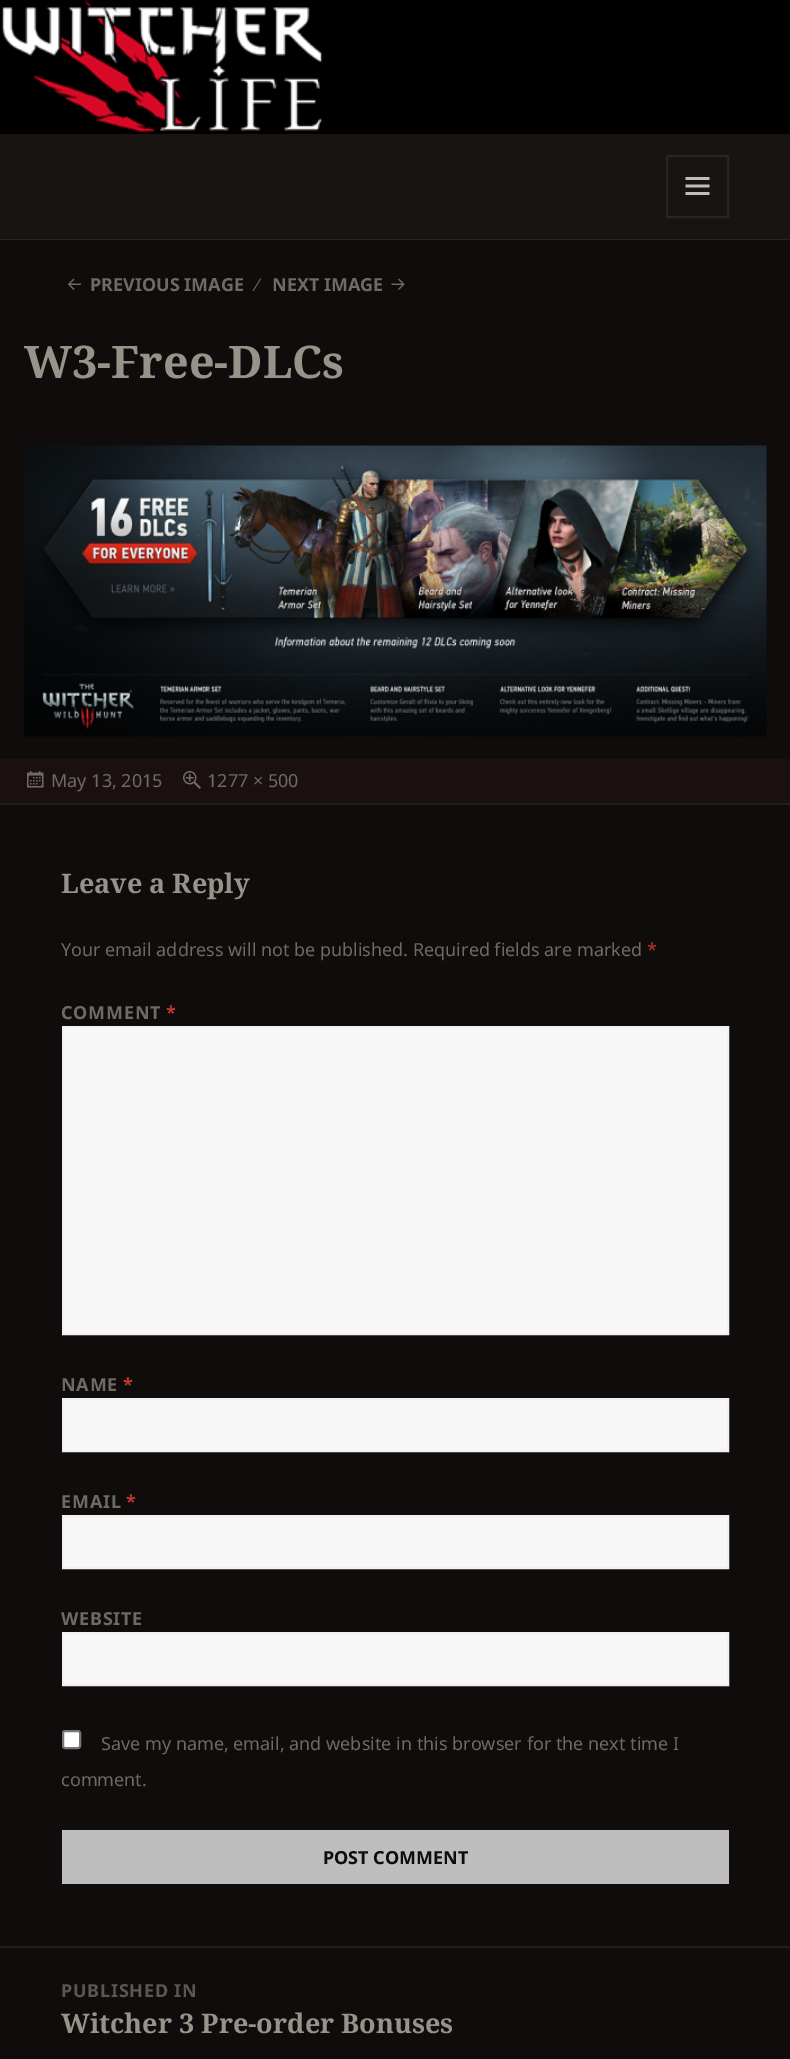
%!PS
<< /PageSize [790 2059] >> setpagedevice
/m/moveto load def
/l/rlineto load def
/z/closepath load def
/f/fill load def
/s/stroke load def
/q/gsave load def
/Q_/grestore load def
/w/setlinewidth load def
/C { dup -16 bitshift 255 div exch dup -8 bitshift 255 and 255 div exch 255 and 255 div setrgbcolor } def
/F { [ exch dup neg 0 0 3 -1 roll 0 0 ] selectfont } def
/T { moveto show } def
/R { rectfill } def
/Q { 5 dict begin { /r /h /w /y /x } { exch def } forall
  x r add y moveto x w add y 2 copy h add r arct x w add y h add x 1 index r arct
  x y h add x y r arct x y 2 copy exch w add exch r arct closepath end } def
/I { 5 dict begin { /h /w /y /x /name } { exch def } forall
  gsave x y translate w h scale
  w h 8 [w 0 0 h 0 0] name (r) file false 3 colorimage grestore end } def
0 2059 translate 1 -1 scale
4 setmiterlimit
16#000000 C
0 0 790 2059 R
(1.rgb) 1 0 322 133 I
16#181412 C
0 134 790 105 R
16#292523 C
0 239 790 1 R
2 w
667 156 61 61 rectstroke
(2.rgb) 685 177 25 18 I
16#0F0C0B C
0 240 790 519 R
(3.rgb) 67 278 14 12 I
/NotoSans-Bold 18 F
16#6D6B64 C
(PREVIOUS IMAGE) 90 291 T
/LiberationSans-Regular 18 F
(∕) 256 291 T
/NotoSans-Bold 18 F
(NEXT IMAGE) 272 291 T
(4.rgb) 391 278 14 12 I
/NotoSerif-Bold 45 F
16#95948A C
(W3-Free-DLCs) 24 378 T
(5.rgb) 24 445 743 292 I
16#1B1010 C
0 759 790 44 R
(6.rgb) 27 771 17 17 I
/NotoSans-Regular 18 F
16#6D6B64 C
(May 13, 2015) 51 787 T
(7.rgb) 183 771 18 18 I
(1277 × 500) 207 787 T
16#0F0C0B C
0 805 790 1141 R
16#211E1D C
0 803 790 2 R
/NotoSerif-Bold 27 F
16#95948A C
(Leave a Reply) 61 893 T
/NotoSans-Regular 18 F
16#6D6B64 C
(Your email address will not be published. Required fields are marked) 61 956 T
16#C0392B C
(*) 647 956 T
/NotoSans-Bold 18 F
16#6D6B64 C
61 1019 m .75 0 (COMMENT) ashow
16#C0392B C
166 1019 m .75 0 (*) ashow
16#F7F7F7 C
63 1027 m 665 0 l 0 307 l -665 0 l z q f Q_
16#F1F1F1 C
s
16#6D6B64 C
61 1391 m .75 0 (NAME) ashow
16#C0392B C
123 1391 m .75 0 (*) ashow
16#F7F7F7 C
63 1399 m 665 0 l 0 52 l -665 0 l z q f Q_
16#F1F1F1 C
s
16#6D6B64 C
61 1508 m .75 0 (EMAIL) ashow
16#C0392B C
126 1508 m .75 0 (*) ashow
16#F7F7F7 C
63 1516 m 665 0 l 0 52 l -665 0 l z q f Q_
16#F1F1F1 C
s
16#6D6B64 C
61 1625 m .75 0 (WEBSITE) ashow
16#F7F7F7 C
63 1633 m 665 0 l 0 52 l -665 0 l z q f Q_
16#F1F1F1 C
s
16#FFFFFF C
63 1731 17 17 2 Q q f Q_
16#767676 C
s
/NotoSans-Regular 18 F
16#6D6B64 C
(Save my name, email, and website in this browser for the next time I) 101 1750 T
(comment.) 61 1786 T
16#BEBEBE C
62 1830 667 54 R
/NotoSans-Bold 18 F
16#0F0C0B C
(POST COMMENT) 323 1864 T
0 1948 790 111 R
16#211E1D C
0 1946 790 2 R
16#5A5852 C
61 1997 m .75 0 (PUBLISHED IN) ashow
/NotoSerif-Bold 27 F
16#95948A C
(Witcher 3 Pre-order Bonuses) 61 2033 T
showpage
